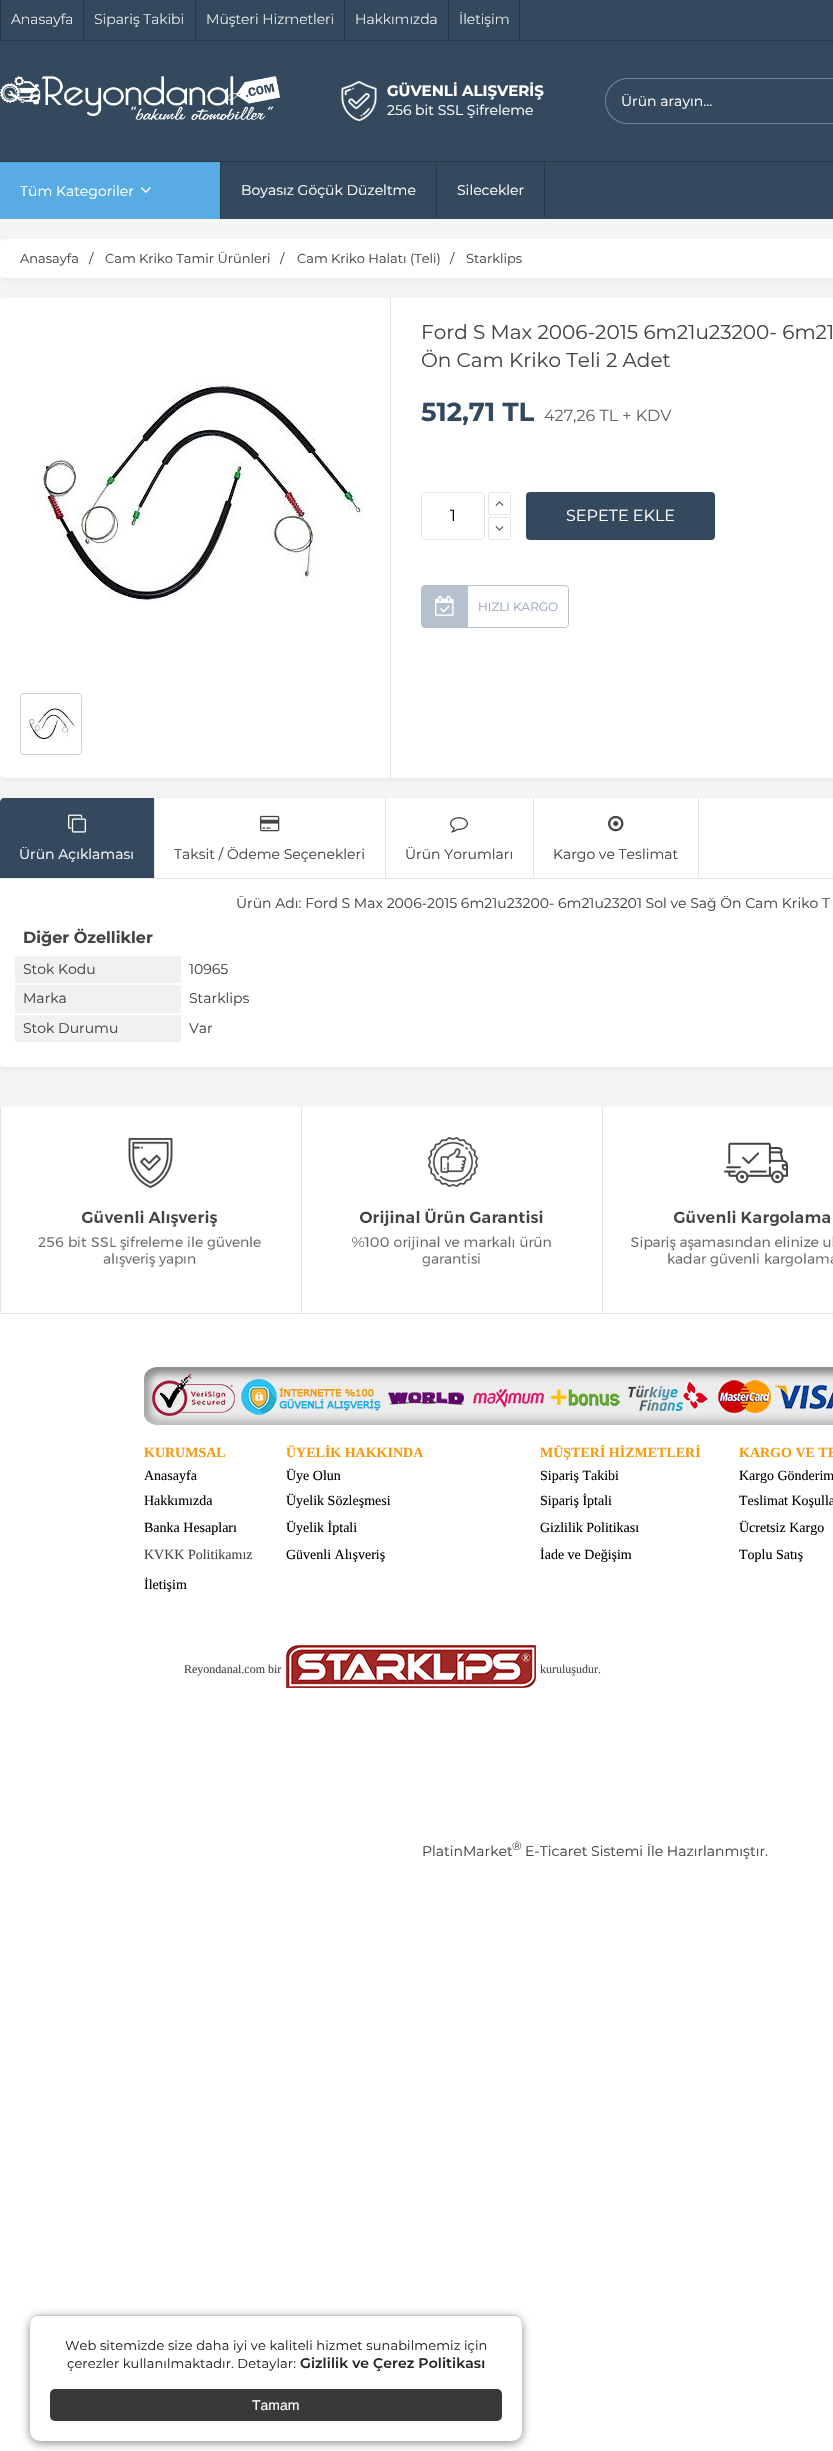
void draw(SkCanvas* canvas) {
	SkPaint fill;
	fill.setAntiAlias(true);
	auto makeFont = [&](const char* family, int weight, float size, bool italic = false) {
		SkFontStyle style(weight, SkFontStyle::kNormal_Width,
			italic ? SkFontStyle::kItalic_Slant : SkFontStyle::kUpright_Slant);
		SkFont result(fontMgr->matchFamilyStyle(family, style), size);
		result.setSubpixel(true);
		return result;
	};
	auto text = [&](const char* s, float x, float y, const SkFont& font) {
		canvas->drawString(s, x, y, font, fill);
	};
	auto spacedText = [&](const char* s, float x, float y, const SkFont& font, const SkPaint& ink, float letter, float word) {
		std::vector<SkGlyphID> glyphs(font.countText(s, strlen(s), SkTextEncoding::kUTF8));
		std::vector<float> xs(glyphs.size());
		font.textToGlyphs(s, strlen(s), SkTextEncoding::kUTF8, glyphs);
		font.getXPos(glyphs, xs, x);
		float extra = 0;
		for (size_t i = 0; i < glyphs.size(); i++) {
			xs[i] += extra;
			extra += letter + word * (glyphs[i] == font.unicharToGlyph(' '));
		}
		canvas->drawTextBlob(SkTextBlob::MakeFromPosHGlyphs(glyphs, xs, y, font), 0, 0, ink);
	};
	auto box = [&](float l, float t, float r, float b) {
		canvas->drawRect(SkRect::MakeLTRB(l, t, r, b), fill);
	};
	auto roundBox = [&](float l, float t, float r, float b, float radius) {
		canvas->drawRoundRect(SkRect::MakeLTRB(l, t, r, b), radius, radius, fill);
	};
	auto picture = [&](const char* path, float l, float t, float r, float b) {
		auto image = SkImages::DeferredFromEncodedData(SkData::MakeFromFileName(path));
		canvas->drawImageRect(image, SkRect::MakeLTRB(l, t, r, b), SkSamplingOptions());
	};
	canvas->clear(0xFFFFFFFF);
	fill.setColor(0xFFF5F5F5);
	box(0, 219, 833, 1107);
	fill.setColor(0xFF34495E);
	box(0, 0, 833, 219);
	fill.setColor(0xFF283A4C);
	box(0, 40, 833, 41);
	box(0, 0, 1, 40);
	box(83, 0, 84, 40);
	box(195, 0, 196, 40);
	box(344, 0, 345, 40);
	box(519, 0, 520, 40);
	box(448, 0, 449, 40);
	picture("image0.png", 0, 76, 280, 120);
	picture("image1.png", 341, 81, 377, 121);
	fill.setColor(0xFF6885A2);
	canvas->drawPath(SkPathBuilder(SkPathFillType::kEvenOdd).moveTo(628, 78).lineTo(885, 78).lineTo(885, 124).lineTo(628, 124).cubicTo(615, 124, 605, 114, 605, 101).cubicTo(605, 88, 615, 78, 628, 78).close().moveTo(628, 79).lineTo(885, 79).lineTo(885, 123).lineTo(628, 123).cubicTo(616, 123, 606, 113, 606, 101).cubicTo(606, 89, 616, 79, 628, 79).close().detach(), fill);
	fill.setColor(0xFF283A4C);
	box(0, 161, 833, 162);
	box(220, 162, 221, 219);
	fill.setColor(0xFF59ABE3);
	box(0, 162, 220, 219);
	picture("image2.png", 140, 187, 151, 193);
	fill.setColor(0xFF283A4C);
	box(436, 162, 437, 218);
	box(544, 162, 545, 218);
	fill.setColor(0xFF888888);
	fill.setMaskFilter(SkMaskFilter::MakeBlur(kNormal_SkBlurStyle, 5));
	canvas->drawRoundRect(SkRect::MakeLTRB(30, 2317, 522, 2443), 10, 10, fill);
	fill.setMaskFilter(nullptr);
	fill.setColor(0xFFFFFFFF);
	roundBox(30, 2315, 522, 2441, 10);
	fill.setColor(0xFFCCCCCC);
	box(35, 2315, 517, 2316);
	fill.setColor(0xFF37393B);
	roundBox(50, 2389, 502, 2421, 5);
	fill.setColor(0x0D000000);
	fill.setMaskFilter(SkMaskFilter::MakeBlur(kNormal_SkBlurStyle, 2.5f));
	canvas->drawRoundRect(SkRect::MakeLTRB(0, 241, 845, 280), 4, 4, fill);
	fill.setMaskFilter(nullptr);
	fill.setColor(0xFFFFFFFF);
	roundBox(0, 239, 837, 278, 4);
	fill.setColor(0x0D000000);
	fill.setMaskFilter(SkMaskFilter::MakeBlur(kNormal_SkBlurStyle, 2.5f));
	canvas->drawRoundRect(SkRect::MakeLTRB(0, 300, 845, 780), 4, 4, fill);
	fill.setMaskFilter(nullptr);
	fill.setColor(0xFFFFFFFF);
	roundBox(0, 298, 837, 778, 4);
	fill.setColor(0xFFE5E5E5);
	box(390, 298, 391, 778);
	picture("image3.png", 36, 382, 364, 605);
	fill.setStyle(SkPaint::kStroke_Style);
	fill.setStrokeWidth(1);
	fill.setColor(0xFFD2D2D2);
	canvas->drawRoundRect(SkRect::MakeLTRB(20.5f, 693.5f, 81.5f, 754.5f), 3.5f, 3.5f, fill);
	picture("image4.png", 26, 707, 75, 739);
	fill.setColor(0xFFE5E5E5);
	canvas->drawRoundRect(SkRect::MakeLTRB(421.5f, 492.5f, 484.5f, 539.5f), 3.5f, 3.5f, fill);
	canvas->drawRoundRect(SkRect::MakeLTRB(488.5f, 492.5f, 510.5f, 514.5f), 1.5f, 1.5f, fill);
	picture("image5.png", 495, 501, 504, 506);
	canvas->drawRoundRect(SkRect::MakeLTRB(488.5f, 517.5f, 510.5f, 539.5f), 1.5f, 1.5f, fill);
	picture("image6.png", 495, 526, 504, 531);
	fill.setStyle(SkPaint::kFill_Style);
	fill.setColor(0xFF34495E);
	roundBox(526, 492, 715, 540, 4);
	fill.setStyle(SkPaint::kStroke_Style);
	fill.setColor(0xFFB7C1CE);
	canvas->drawRoundRect(SkRect::MakeLTRB(421.5f, 585.5f, 568.5f, 627.5f), 3.5f, 3.5f, fill);
	fill.setStyle(SkPaint::kFill_Style);
	box(422, 586, 468, 627);
	picture("image7.png", 435, 595, 454, 616);
	fill.setColor(0x0D000000);
	fill.setMaskFilter(SkMaskFilter::MakeBlur(kNormal_SkBlurStyle, 2.5f));
	canvas->drawRoundRect(SkRect::MakeLTRB(0, 800, 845, 1069), 4, 4, fill);
	fill.setMaskFilter(nullptr);
	fill.setColor(0xFFFFFFFF);
	canvas->drawPath(SkPathBuilder().moveTo(4, 798).lineTo(833, 798).cubicTo(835, 798, 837, 800, 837, 802).lineTo(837, 879).lineTo(0, 879).lineTo(0, 802).cubicTo(0, 800, 2, 798, 4, 798).close().detach(), fill);
	fill.setColor(0xFFE5E5E5);
	box(0, 878, 833, 879);
	fill.setColor(0xFF34495E);
	canvas->drawPath(SkPathBuilder().moveTo(4, 798).lineTo(154, 798).lineTo(154, 878).lineTo(0, 878).lineTo(0, 802).cubicTo(0, 800, 2, 798, 4, 798).close().detach(), fill);
	fill.setColor(0xFFE5E5E5);
	box(154, 798, 155, 878);
	picture("image8.png", 68, 814, 86, 833);
	box(385, 798, 386, 878);
	picture("image9.png", 260, 815, 280, 832);
	box(533, 798, 534, 878);
	picture("image10.png", 450, 817, 468, 833);
	box(698, 798, 699, 878);
	picture("image11.png", 608, 815, 624, 832);
	fill.setColor(0xFFFFFFFF);
	canvas->drawPath(SkPathBuilder().moveTo(0, 879).lineTo(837, 879).lineTo(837, 1063).cubicTo(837, 1065, 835, 1067, 833, 1067).lineTo(4, 1067).cubicTo(2, 1067, 0, 1065, 0, 1063).close().detach(), fill);
	fill.setColor(0xFFF1F1F1);
	box(15, 956, 181, 983);
	box(15, 985, 181, 1013);
	box(15, 1015, 181, 1042);
	fill.setColor(0xFFE5E5E5);
	box(0, 1313, 833, 1314);
	box(301, 1107, 302, 1313);
	box(0, 1107, 1, 1313);
	picture("image12.png", 38, 1138, 261, 1267);
	box(602, 1107, 603, 1313);
	picture("image13.png", 352, 1137, 551, 1267);
	picture("image14.png", 631, 1142, 833, 1267);
	picture("image15.png", 144, 1367, 833, 1425);
	picture("image16.png", 286, 1645, 536, 1688);
	auto font1 = makeFont("Montserrat", 300, 14);
	fill.setColor(0xFFFFFFFF);
	text("Anasayfa", 11, 24, font1);
	text("Sipariş Takibi", 94, 24, font1);
	text("Müşteri Hizmetleri", 206, 24, font1);
	text("Hakkımızda", 355, 24, font1);
	text("İletişim", 459, 24, font1);
	auto font2 = makeFont("Montserrat", 700, 15);
	text("GÜVENLİ ALIŞVERİŞ", 387, 96, font2);
	auto font3 = makeFont("Montserrat", 400, 14);
	text("256 bit SSL Şifreleme", 387, 115, font3);
	text("Ürün arayın...", 621, 106, font3);
	text("Tüm Kategoriler", 20, 196, font3);
	text("Boyasız Göçük Düzeltme", 241, 195, font3);
	text("Silecekler", 457, 195, font3);
	auto font4 = makeFont("Montserrat", 400, 13);
	fill.setColor(0xFF262626);
	spacedText("Web sitemizde size daha iyi ve kaliteli hizmet sunabilmemiz için", 65, 2350, font4, fill, 0.1f, 0);
	spacedText("çerezler kullanılmaktadır. Detaylar:", 67, 2368, font4, fill, 0.1f, 0);
	auto font5 = makeFont("Montserrat", 600, 14);
	spacedText("Gizlilik ve Çerez Politikası", 300, 2368, font5, fill, 0.1f, 0);
	auto font6 = makeFont("Liberation Sans", 400, 14);
	fill.setColor(0xFFFFFFFF);
	text("Tamam", 252, 2410, font6);
	fill.setColor(0xFF444444);
	text("Anasayfa", 20, 263, font4);
	text("/", 89, 263, font4);
	text("Cam Kriko Tamir Ürünleri", 105, 263, font4);
	text("/", 280, 263, font4);
	text("Cam Kriko Halatı (Teli)", 297, 263, font4);
	text("/", 450, 263, font4);
	text("Starklips", 466, 263, font4);
	auto font7 = makeFont("Montserrat", 400, 20);
	text("Ford S Max 2006-2015 6m21u23200- 6m21", 421, 339, font7);
	text("Ön Cam Kriko Teli 2 Adet", 421, 367, font7);
	auto font8 = makeFont("Montserrat", 700, 26);
	fill.setColor(0xFF34495E);
	text("512,71 TL", 421, 421, font8);
	auto font9 = makeFont("Montserrat", 400, 16);
	fill.setColor(0xFF666666);
	text("427,26 TL + KDV", 544, 421, font9);
	fill.setColor(0xFF000000);
	text("1", 450, 521, font9);
	fill.setColor(0xFFFFFFFF);
	text("SEPETE EKLE", 566, 521, font9);
	auto font10 = makeFont("Montserrat", 400, 12);
	fill.setColor(0xFF98A6B7);
	text("HIZLI KARGO", 478, 611, font10);
	fill.setColor(0xFFFFFFFF);
	text("Ürün Açıklaması", 19, 859, font3);
	fill.setColor(0xFF444444);
	text("Taksit / Ödeme Seçenekleri", 174, 859, font3);
	text("Ürün Yorumları", 405, 859, font3);
	text("Kargo ve Teslimat", 553, 859, font3);
	text("Ürün Adı: Ford S Max 2006-2015 6m21u23200- 6m21u23201 Sol ve Sağ Ön Cam Kriko T", 236, 908, font3);
	auto font11 = makeFont("Montserrat", 700, 16);
	text("Diğer Özellikler", 23, 943, font11);
	text("Stok Kodu", 23, 974, font3);
	text("10965", 189, 974, font3);
	text("Marka", 23, 1003, font3);
	text("Starklips", 189, 1003, font3);
	text("Stok Durumu", 23, 1033, font3);
	text("Var", 189, 1033, font3);
	auto font12 = makeFont("Liberation Serif", 700, 14);
	fill.setColor(0xFFF39C12);
	text("KURUMSAL", 144, 1457, font12);
	text("ÜYELİK HAKKINDA", 286, 1457, font12);
	text("MÜŞTERİ HİZMETLERİ", 540, 1457, font12);
	text("KARGO VE TE", 739, 1457, font12);
	auto font13 = makeFont("Liberation Serif", 400, 14);
	fill.setColor(0xFF000000);
	text("Anasayfa", 144, 1480, font13);
	text("Üye Olun", 286, 1480, font13);
	text("Sipariş Takibi", 540, 1480, font13);
	text("Kargo Gönderim", 739, 1480, font13);
	text("Hakkımızda", 144, 1505, font13);
	text("Üyelik Sözleşmesi", 286, 1505, font13);
	text("Sipariş İptali", 540, 1505, font13);
	text("Teslimat Koşulla", 739, 1505, font13);
	text("Banka Hesapları", 144, 1532, font13);
	text("Üyelik İptali", 286, 1532, font13);
	text("Gizlilik Politikası", 540, 1532, font13);
	text("Ücretsiz Kargo", 739, 1532, font13);
	fill.setColor(0xFF444444);
	text("KVKK Politikamız", 144, 1559, font13);
	fill.setColor(0xFF000000);
	text("Güvenli Alışveriş", 286, 1559, font13);
	text("İade ve Değişim", 540, 1559, font13);
	text("Toplu Satış", 739, 1559, font13);
	text("İletişim", 144, 1589, font13);
	auto font14 = makeFont("Liberation Serif", 400, 12);
	fill.setColor(0xFF444444);
	text("Reyondanal.com bir", 184, 1673, font14);
	text("kuruluşudur.", 540, 1673, font14);
	text("PlatinMarket", 422, 1856, font3);
	text("®", 512, 1850, font10);
	text("E-Ticaret Sistemi İle Hazırlanmıştır.", 525, 1856, font3);
}
